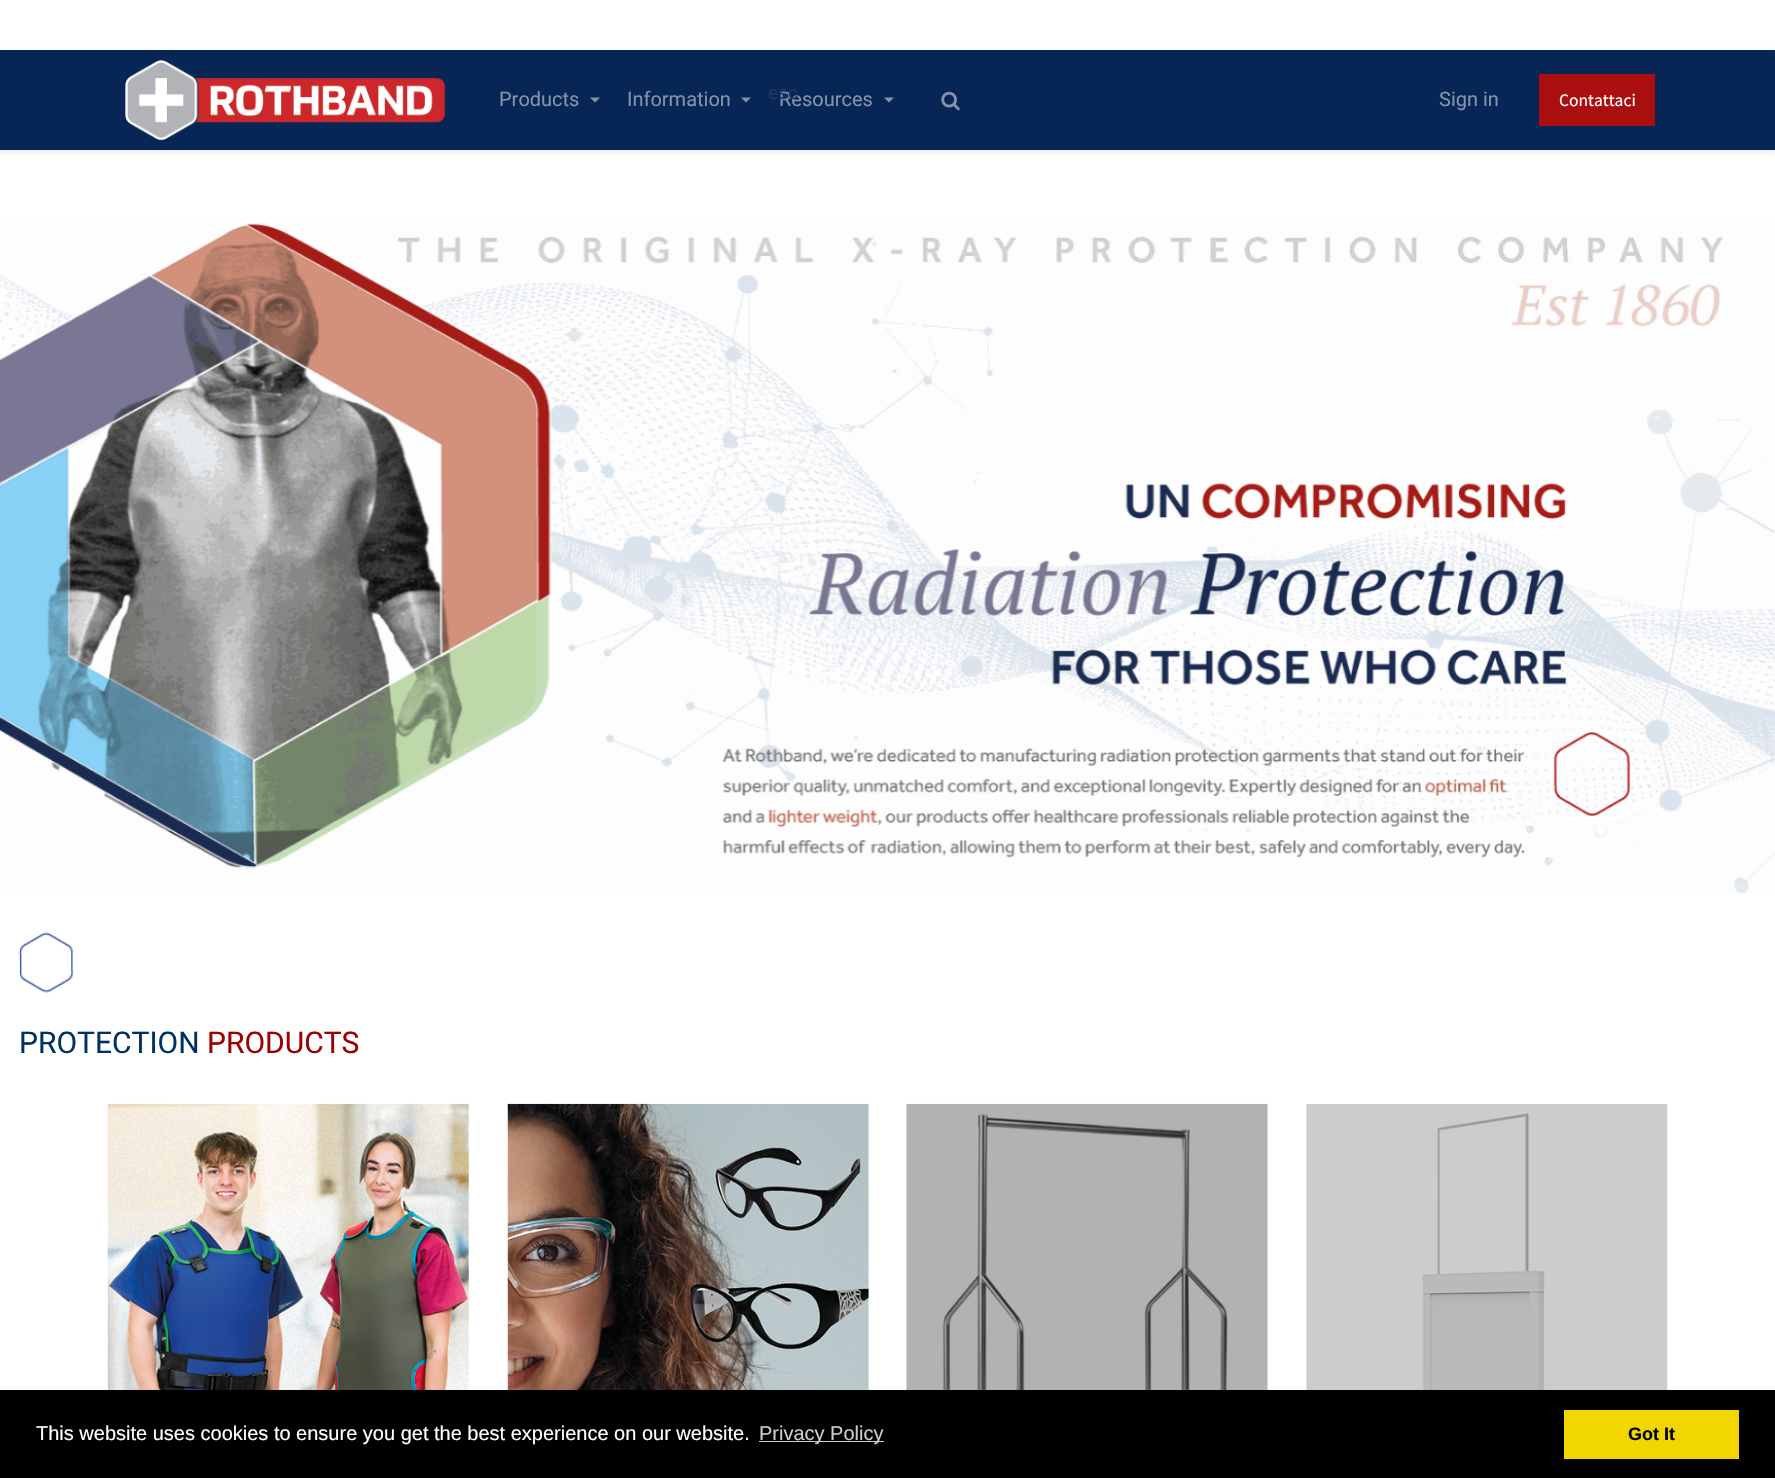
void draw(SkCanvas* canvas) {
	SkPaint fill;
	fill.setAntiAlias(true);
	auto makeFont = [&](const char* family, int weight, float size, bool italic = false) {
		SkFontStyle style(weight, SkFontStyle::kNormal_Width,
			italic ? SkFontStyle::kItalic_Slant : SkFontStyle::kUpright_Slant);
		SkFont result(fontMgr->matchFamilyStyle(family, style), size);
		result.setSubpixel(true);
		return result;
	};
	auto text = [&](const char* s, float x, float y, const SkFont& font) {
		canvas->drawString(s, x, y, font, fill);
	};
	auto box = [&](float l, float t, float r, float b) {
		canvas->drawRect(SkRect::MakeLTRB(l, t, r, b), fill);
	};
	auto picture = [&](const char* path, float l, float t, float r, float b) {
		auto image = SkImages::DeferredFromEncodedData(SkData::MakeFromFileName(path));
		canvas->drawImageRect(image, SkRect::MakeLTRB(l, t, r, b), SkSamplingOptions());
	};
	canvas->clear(0xFFFFFFFF);
	fill.setColor(0x12000000);
	fill.setMaskFilter(SkMaskFilter::MakeBlur(kNormal_SkBlurStyle, 2.5f));
	canvas->drawRect(SkRect::MakeLTRB(0, 53, 1775, 153), fill);
	fill.setMaskFilter(nullptr);
	fill.setColor(0xFF072655);
	box(0, 50, 1775, 150);
	picture("image0.png", 125, 60, 445, 140);
	fill.setColor(0xFF8393AA);
	canvas->drawPath(SkPathBuilder().moveTo(590, 97.5f).lineTo(600, 97.5f).lineTo(595, 102.5f).close().detach(), fill);
	canvas->drawPath(SkPathBuilder().moveTo(741, 97.5f).lineTo(751, 97.5f).lineTo(746, 102.5f).close().detach(), fill);
	canvas->drawPath(SkPathBuilder().moveTo(884, 97.5f).lineTo(894, 97.5f).lineTo(889, 102.5f).close().detach(), fill);
	picture("image1.png", 941, 91, 960, 111);
	fill.setColor(0xFFAA0E0E);
	box(1539, 74, 1655, 126);
	picture("image2.png", 0, 223, 1775, 894);
	picture("image3.png", 18, 932, 74, 993);
	picture("image4.png", 107, 1103, 469, 1390);
	picture("image5.png", 507, 1103, 869, 1390);
	picture("image6.png", 906, 1103, 1268, 1390);
	picture("image7.png", 1306, 1104, 1668, 1390);
	fill.setColor(0xFF000000);
	box(0, 1390, 1775, 1478);
	fill.setColor(0xFFCCCCCC);
	box(759, 1441, 884, 1442);
	fill.setColor(0xFFF1D600);
	box(1564, 1410, 1739, 1459);
	auto font1 = makeFont("Roboto", 400, 20);
	fill.setColor(0xFF8393AA);
	text("Products", 499, 106, font1);
	text("Information", 627, 106, font1);
	text("Resources", 779, 106, font1);
	auto font2 = makeFont("Roboto", 400, 19);
	fill.setColor(0xFF1B3863);
	text("esc", 768, 99, font2);
	fill.setColor(0xFF8393AA);
	text("Sign in", 1439, 106, font1);
	auto font3 = makeFont("Source Sans Pro", 400, 17.5f);
	fill.setColor(0xFFFFFFFF);
	text("Contattaci", 1559, 106, font3);
	auto font4 = makeFont("Roboto", 400, 30);
	fill.setColor(0xFF003163);
	text("PROTECTION", 19, 1053, font4);
	fill.setColor(0xFF9C0000);
	text("PRODUCTS", 207, 1053, font4);
	auto font5 = makeFont("Liberation Sans", 400, 20);
	fill.setColor(0xFFFFFFFF);
	text("This website uses cookies to ensure you get the best experience on our website.", 36, 1440, font5);
	fill.setColor(0xFFCCCCCC);
	text("Privacy Policy", 759, 1440, font5);
	auto font6 = makeFont("Liberation Sans", 700, 18);
	fill.setColor(0xFF000000);
	text("Got It", 1628, 1440, font6);
}
